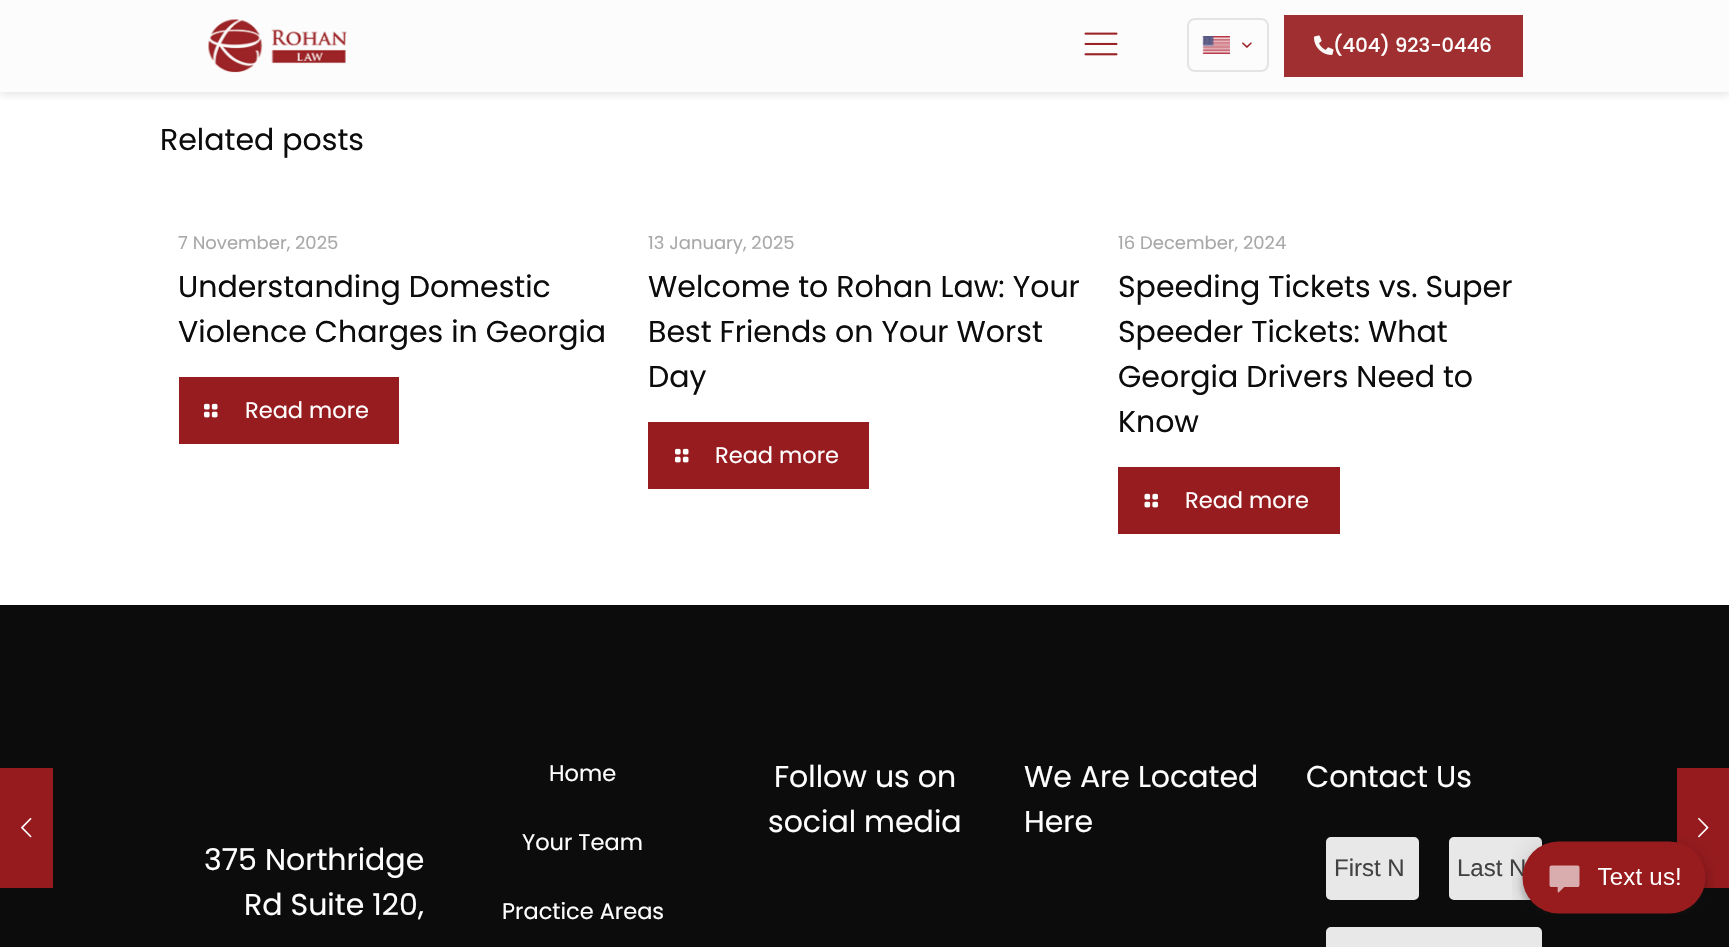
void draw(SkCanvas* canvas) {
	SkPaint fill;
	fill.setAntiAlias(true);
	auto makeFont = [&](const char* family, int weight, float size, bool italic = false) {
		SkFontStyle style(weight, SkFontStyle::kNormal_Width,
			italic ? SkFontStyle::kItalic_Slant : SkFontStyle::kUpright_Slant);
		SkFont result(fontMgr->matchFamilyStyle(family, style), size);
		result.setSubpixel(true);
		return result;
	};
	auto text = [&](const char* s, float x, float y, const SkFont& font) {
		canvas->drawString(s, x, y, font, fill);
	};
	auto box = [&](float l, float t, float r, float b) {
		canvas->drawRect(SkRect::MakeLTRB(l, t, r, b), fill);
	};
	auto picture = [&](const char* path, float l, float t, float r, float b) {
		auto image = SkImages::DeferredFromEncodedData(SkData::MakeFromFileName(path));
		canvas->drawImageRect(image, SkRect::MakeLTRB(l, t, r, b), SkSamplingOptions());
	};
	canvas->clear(0xFFFFFFFF);
	fill.setColor(0xFF0C0C0C);
	box(0, 605, 1729, 947);
	fill.setColor(0xFF961B1E);
	box(0, 768, 53, 888);
	picture("image0.png", 21, 817, 32, 838);
	fill.setColor(0xFFEBEBEB);
	box(161, 86, 1571, 88);
	canvas->save();
	canvas->clipPath(SkPathBuilder(SkPathFillType::kEvenOdd).moveTo(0, 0).lineTo(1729, 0).lineTo(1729, 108).lineTo(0, 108).close().moveTo(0, 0).lineTo(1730, 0).lineTo(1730, 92).lineTo(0, 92).close().detach(), true);
	fill.setColor(0x1A080808);
	fill.setMaskFilter(SkMaskFilter::MakeBlur(kNormal_SkBlurStyle, 4));
	canvas->drawRect(SkRect::MakeLTRB(0, 3, 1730, 95), fill);
	fill.setMaskFilter(nullptr);
	canvas->restore();
	fill.setColor(0xF7FCFCFC);
	box(0, 0, 1729, 92);
	picture("image1.png", 208, 19, 347, 73);
	picture("image2.png", 1084, 32, 1118, 56);
	fill.setStyle(SkPaint::kStroke_Style);
	fill.setStrokeWidth(2);
	fill.setColor(0xFFE4E4E4);
	canvas->drawRoundRect(SkRect::MakeLTRB(1188, 19, 1268, 71), 7, 7, fill);
	picture("image3.png", 1202, 36, 1230, 54);
	picture("image4.png", 1242, 42, 1252, 48);
	fill.setStyle(SkPaint::kFill_Style);
	fill.setColor(0xFF9A2326);
	box(1284, 15, 1523, 77);
	picture("image5.png", 1314, 35, 1334, 55);
	fill.setColor(0x0DFFFFFF);
	box(1284, 15, 1523, 77);
	fill.setColor(0xFF971C1F);
	box(179, 377, 399, 444);
	picture("image6.png", 204, 403, 218, 418);
	box(648, 422, 869, 489);
	picture("image6.png", 675, 448, 689, 463);
	box(1118, 467, 1340, 534);
	picture("image7.png", 1144, 493, 1158, 508);
	fill.setColor(0xFFE8E8E8);
	canvas->drawRoundRect(SkRect::MakeLTRB(1327, 838, 1418, 899), 4, 4, fill);
	fill.setStyle(SkPaint::kStroke_Style);
	canvas->drawRoundRect(SkRect::MakeLTRB(1327, 838, 1418, 899), 4, 4, fill);
	fill.setStyle(SkPaint::kFill_Style);
	canvas->drawRoundRect(SkRect::MakeLTRB(1450, 838, 1541, 899), 4, 4, fill);
	fill.setStyle(SkPaint::kStroke_Style);
	canvas->drawRoundRect(SkRect::MakeLTRB(1450, 838, 1541, 899), 4, 4, fill);
	fill.setStyle(SkPaint::kFill_Style);
	canvas->drawRoundRect(SkRect::MakeLTRB(1327, 928, 1541, 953), 4, 4, fill);
	fill.setStyle(SkPaint::kStroke_Style);
	canvas->drawRoundRect(SkRect::MakeLTRB(1327, 928, 1541, 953), 4, 4, fill);
	fill.setStyle(SkPaint::kFill_Style);
	fill.setColor(0xFF961B1E);
	box(1677, 768, 1729, 888);
	picture("image8.png", 1698, 817, 1709, 838);
	auto font1 = makeFont("Poppins", 500, 19.5f);
	fill.setColor(0xFFFFFFFF);
	text("(404) 923-0446", 1333, 52, font1);
	auto font2 = makeFont("Poppins", 400, 30);
	fill.setColor(0xFF0C0C0C);
	text("Related posts", 160, 150, font2);
	auto font3 = makeFont("Poppins", 400, 18);
	fill.setColor(0xFFA8A8A8);
	text("7 November, 2025", 178, 249, font3);
	fill.setColor(0xFF0C0C0C);
	text("Understanding Domestic", 178, 297, font2);
	text("Violence Charges in Georgia", 178, 342, font2);
	auto font4 = makeFont("Poppins", 400, 22.5f);
	fill.setColor(0xFFFFFFFF);
	text("Read more", 245, 418, font4);
	fill.setColor(0xFFA8A8A8);
	text("13 January, 2025", 648, 249, font3);
	fill.setColor(0xFF0C0C0C);
	text("Welcome to Rohan Law: Your", 648, 297, font2);
	text("Best Friends on Your Worst", 648, 342, font2);
	text("Day", 648, 387, font2);
	fill.setColor(0xFFFFFFFF);
	text("Read more", 715, 463, font4);
	fill.setColor(0xFFA8A8A8);
	text("16 December, 2024", 1118, 249, font3);
	fill.setColor(0xFF0C0C0C);
	text("Speeding Tickets vs. Super", 1118, 297, font2);
	text("Speeder Tickets: What", 1118, 342, font2);
	text("Georgia Drivers Need to", 1118, 387, font2);
	text("Know", 1118, 432, font2);
	fill.setColor(0xFFFFFFFF);
	text("Read more", 1185, 508, font4);
	text("375 Northridge", 204, 870, font2);
	text("Rd Suite 120,", 244, 915, font2);
	text("Home", 549, 781, font4);
	text("Your Team", 522, 850, font4);
	text("Practice Areas", 502, 919, font4);
	text("Follow us on", 774, 787, font2);
	text("social media", 768, 832, font2);
	text("We Are Located", 1024, 787, font2);
	text("Here", 1024, 832, font2);
	text("Contact Us", 1306, 787, font2);
	auto font5 = makeFont("Liberation Sans", 400, 24);
	fill.setColor(0xFF424242);
	text("First N", 1334, 876, font5);
	text("Last N", 1457, 876, font5);
	picture("image9.png", 1512, 836, 1715, 914);
}
